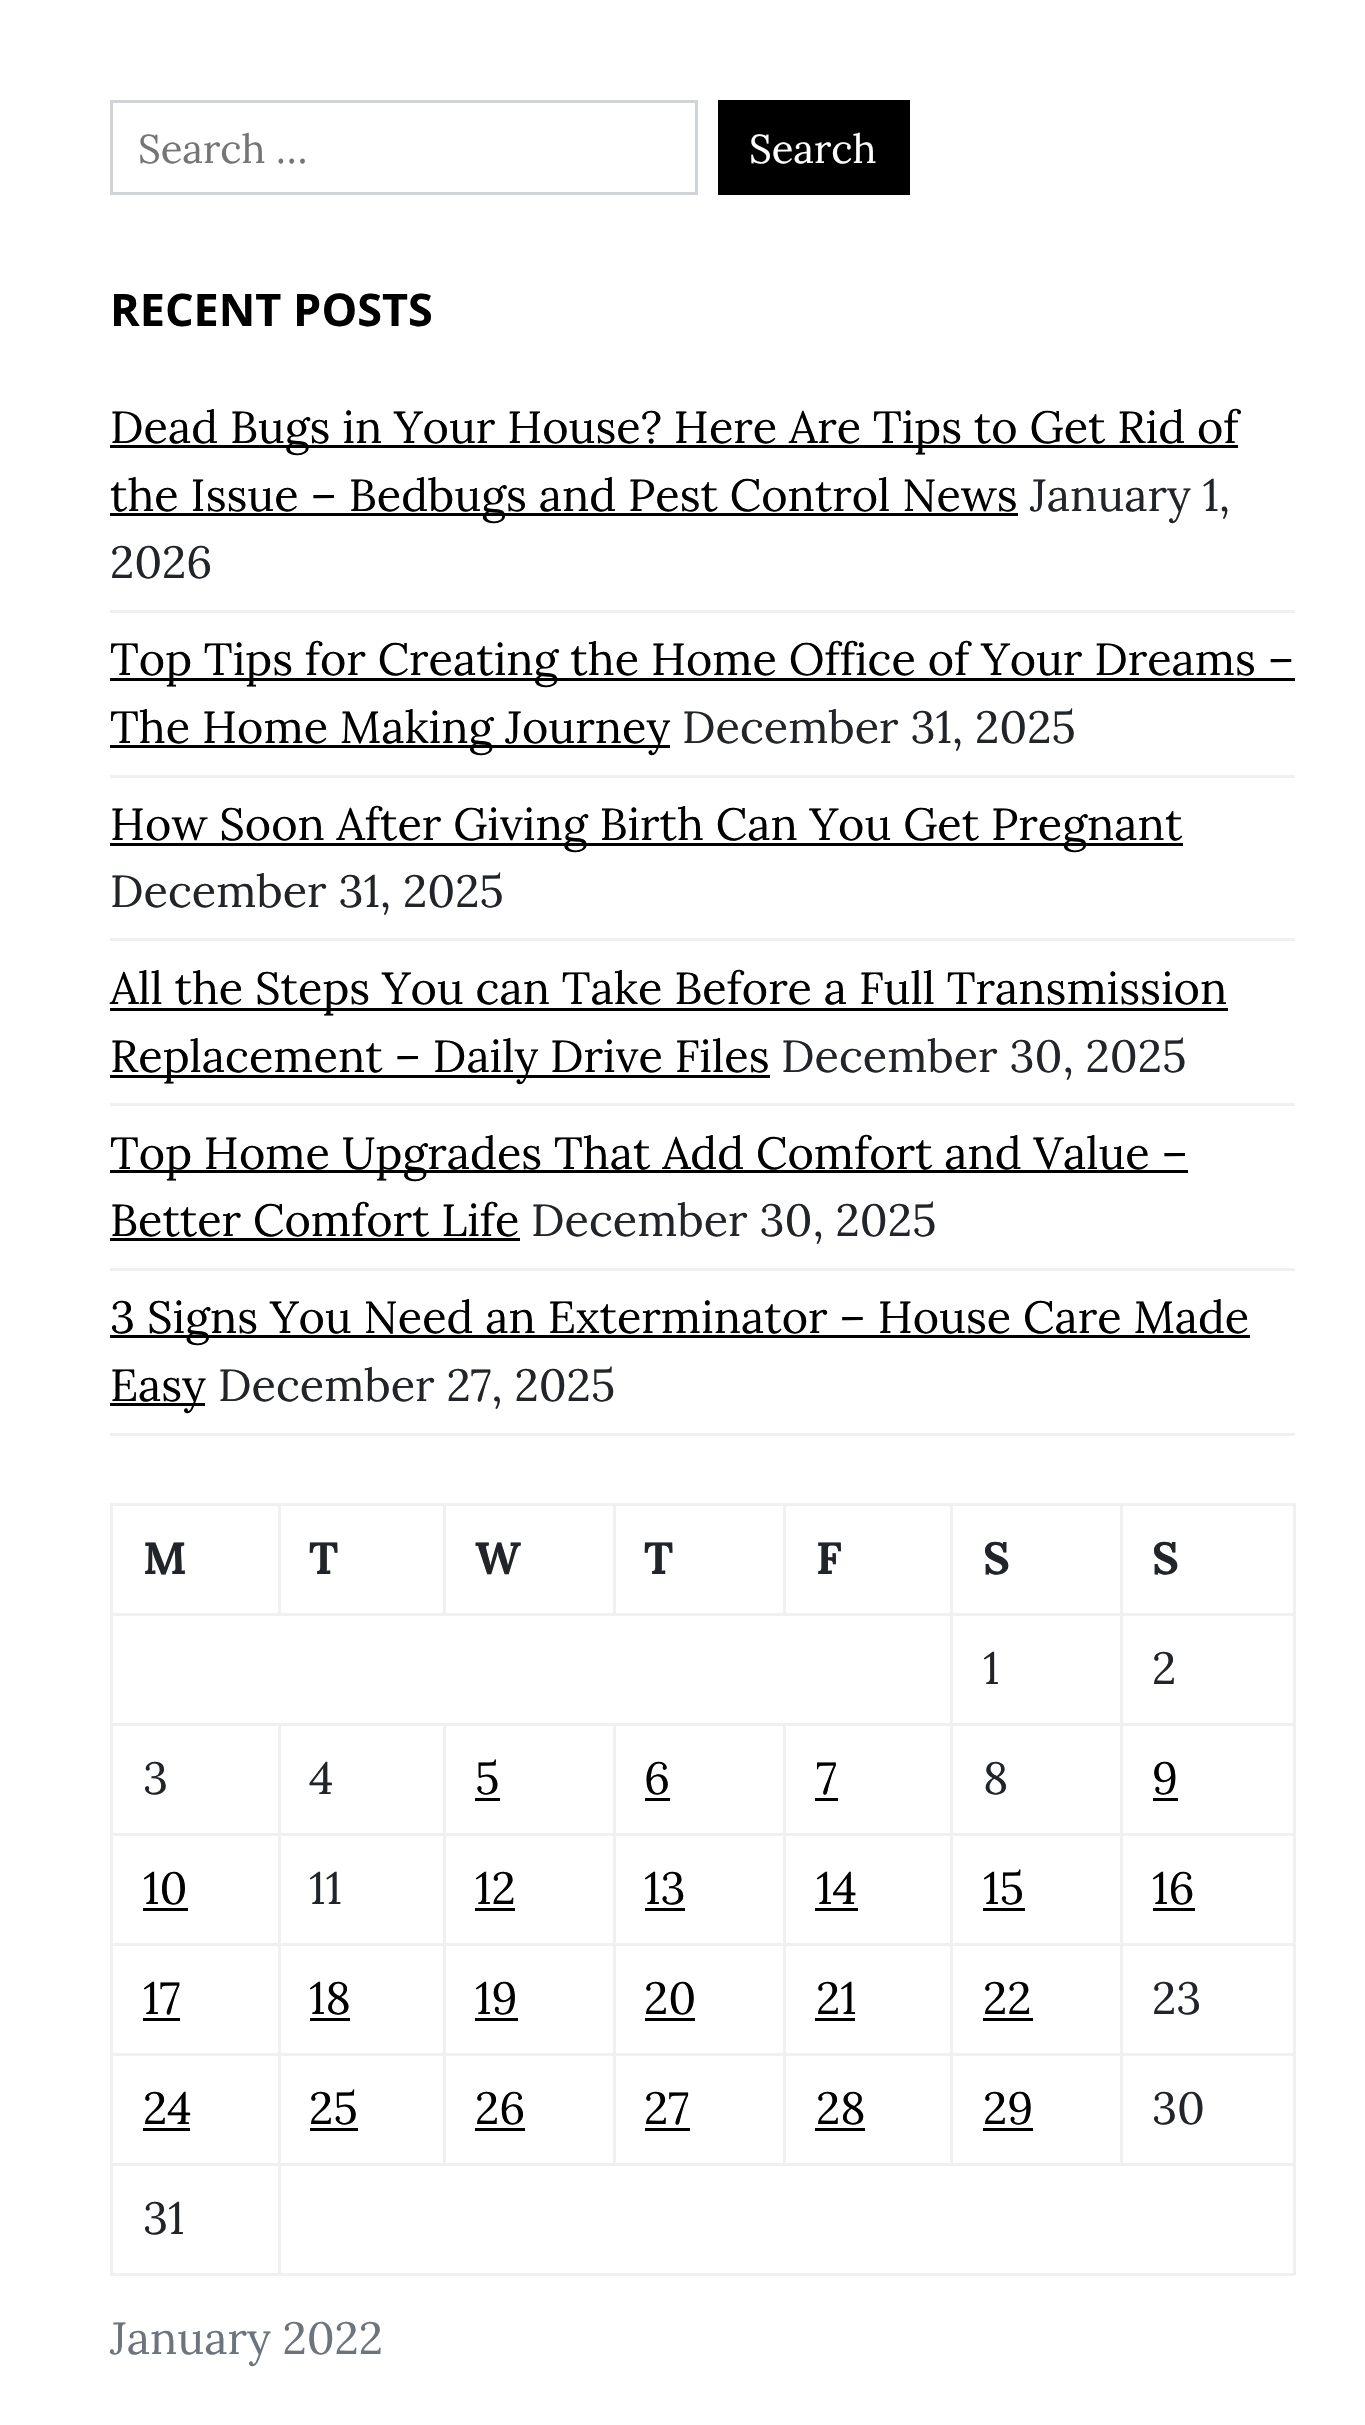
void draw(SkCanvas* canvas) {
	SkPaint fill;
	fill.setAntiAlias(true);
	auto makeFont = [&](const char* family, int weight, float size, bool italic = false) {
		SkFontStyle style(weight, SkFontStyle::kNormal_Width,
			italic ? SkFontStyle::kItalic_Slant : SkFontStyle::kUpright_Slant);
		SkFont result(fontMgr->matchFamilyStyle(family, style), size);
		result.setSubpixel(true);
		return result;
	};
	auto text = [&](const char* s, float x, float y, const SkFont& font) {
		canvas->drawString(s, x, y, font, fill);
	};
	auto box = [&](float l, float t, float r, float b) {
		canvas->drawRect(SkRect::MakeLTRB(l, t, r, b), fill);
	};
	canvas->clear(0xFFFFFFFF);
	fill.setStyle(SkPaint::kStroke_Style);
	fill.setStrokeWidth(3);
	fill.setColor(0xFFCED4DA);
	canvas->drawRect(SkRect::MakeLTRB(111.5f, 101.5f, 696.5f, 193.5f), fill);
	fill.setStyle(SkPaint::kFill_Style);
	fill.setColor(0xFF000000);
	box(718, 100, 910, 195);
	fill.setColor(0xFFF0F0F0);
	box(110, 610, 1295, 613);
	fill.setColor(0xFF000000);
	box(110, 445, 1238, 448);
	box(110, 513, 1018, 516);
	fill.setColor(0xFFF0F0F0);
	box(110, 775, 1295, 778);
	fill.setColor(0xFF000000);
	box(110, 678, 1295, 681);
	box(110, 745, 670, 748);
	fill.setColor(0xFFF0F0F0);
	box(110, 938, 1295, 941);
	fill.setColor(0xFF000000);
	box(110, 843, 1183, 846);
	fill.setColor(0xFFF0F0F0);
	box(110, 1103, 1295, 1106);
	fill.setColor(0xFF000000);
	box(110, 1008, 1228, 1011);
	box(110, 1075, 770, 1078);
	fill.setColor(0xFFF0F0F0);
	box(110, 1268, 1295, 1271);
	fill.setColor(0xFF000000);
	box(110, 1170, 1188, 1173);
	box(110, 1238, 520, 1241);
	fill.setColor(0xFFF0F0F0);
	box(110, 1433, 1295, 1436);
	fill.setColor(0xFF000000);
	box(110, 1335, 1250, 1338);
	box(110, 1403, 205, 1406);
	fill.setColor(0xFFF0F0F0);
	box(1120, 1503, 1295, 1506);
	box(1120, 1613, 1295, 1616);
	box(1120, 1723, 1295, 1726);
	box(1120, 1833, 1295, 1836);
	box(1120, 1943, 1295, 1946);
	box(1120, 2053, 1295, 2056);
	box(278, 2163, 1295, 2166);
	box(1120, 2053, 1123, 2165);
	box(950, 2053, 1123, 2056);
	box(1120, 1943, 1123, 2055);
	box(950, 1943, 1123, 1946);
	box(1120, 1833, 1123, 1945);
	box(950, 1833, 1123, 1836);
	box(1120, 1723, 1123, 1835);
	box(950, 1723, 1123, 1726);
	box(1120, 1613, 1123, 1725);
	box(950, 1613, 1123, 1616);
	box(1120, 1503, 1123, 1615);
	box(950, 1503, 1123, 1506);
	box(950, 2053, 953, 2165);
	box(783, 2053, 953, 2056);
	box(950, 1943, 953, 2055);
	box(783, 1943, 953, 1946);
	box(950, 1833, 953, 1945);
	box(783, 1833, 953, 1836);
	box(950, 1723, 953, 1835);
	box(783, 1723, 953, 1726);
	box(950, 1613, 953, 1725);
	box(110, 1613, 953, 1616);
	box(950, 1503, 953, 1615);
	box(783, 1503, 953, 1506);
	box(783, 1503, 786, 1615);
	box(613, 1503, 785, 1506);
	box(613, 1503, 616, 1615);
	box(443, 1503, 615, 1506);
	box(443, 1503, 446, 1615);
	box(278, 1503, 445, 1506);
	box(278, 1503, 281, 1615);
	box(110, 1503, 280, 1506);
	box(783, 2053, 786, 2165);
	box(613, 2053, 785, 2056);
	box(783, 1943, 786, 2055);
	box(613, 1943, 785, 1946);
	box(783, 1833, 786, 1945);
	box(613, 1833, 785, 1836);
	box(783, 1723, 786, 1835);
	box(613, 1723, 785, 1726);
	box(613, 2053, 616, 2165);
	box(443, 2053, 615, 2056);
	box(613, 1943, 616, 2055);
	box(443, 1943, 615, 1946);
	box(613, 1833, 616, 1945);
	box(443, 1833, 615, 1836);
	box(613, 1723, 616, 1835);
	box(443, 1723, 615, 1726);
	box(443, 2053, 446, 2165);
	box(278, 2053, 445, 2056);
	box(443, 1943, 446, 2055);
	box(278, 1943, 445, 1946);
	box(443, 1833, 446, 1945);
	box(278, 1833, 445, 1836);
	box(443, 1723, 446, 1835);
	box(278, 1723, 445, 1726);
	box(1293, 2163, 1296, 2275);
	box(278, 2273, 1295, 2276);
	box(278, 2163, 281, 2275);
	box(110, 2163, 280, 2166);
	box(278, 2053, 281, 2165);
	box(110, 2053, 280, 2056);
	box(278, 1943, 281, 2055);
	box(110, 1943, 280, 1946);
	box(278, 1833, 281, 1945);
	box(110, 1833, 280, 1836);
	box(278, 1723, 281, 1835);
	box(110, 1723, 280, 1726);
	box(110, 2273, 280, 2276);
	box(110, 2163, 113, 2275);
	box(110, 2053, 113, 2165);
	box(110, 1943, 113, 2055);
	box(110, 1833, 113, 1945);
	box(110, 1723, 113, 1835);
	box(110, 1613, 113, 1725);
	box(110, 1503, 113, 1615);
	box(1293, 2053, 1296, 2165);
	box(1293, 1943, 1296, 2055);
	box(1293, 1833, 1296, 1945);
	box(1293, 1723, 1296, 1835);
	box(1293, 1613, 1296, 1725);
	box(1293, 1503, 1296, 1615);
	fill.setColor(0xFF000000);
	box(475, 1798, 500, 1801);
	box(645, 1798, 670, 1801);
	box(815, 1798, 838, 1801);
	box(1153, 1798, 1178, 1801);
	box(143, 1908, 188, 1911);
	box(475, 1908, 515, 1911);
	box(645, 1908, 685, 1911);
	box(815, 1908, 858, 1911);
	box(983, 1908, 1025, 1911);
	box(1153, 1908, 1195, 1911);
	box(143, 2018, 180, 2021);
	box(310, 2018, 350, 2021);
	box(475, 2018, 518, 2021);
	box(645, 2018, 695, 2021);
	box(815, 2018, 855, 2021);
	box(983, 2018, 1033, 2021);
	box(143, 2128, 190, 2131);
	box(310, 2128, 358, 2131);
	box(475, 2128, 525, 2131);
	box(645, 2128, 690, 2131);
	box(815, 2128, 865, 2131);
	box(983, 2128, 1033, 2131);
	auto font1 = makeFont("Lora", 400, 40);
	fill.setColor(0xFF757575);
	text("Search …", 138, 163, font1);
	fill.setColor(0xFFFFFFFF);
	text("Search", 749, 163, font1);
	auto font2 = makeFont("Open Sans", 700, 45);
	fill.setColor(0xFF000000);
	text("RECENT POSTS", 110, 326, font2);
	auto font3 = makeFont("Lora", 400, 45);
	text("Dead Bugs in Your House? Here Are Tips to Get Rid of", 110, 443, font3);
	text("the Issue – Bedbugs and Pest Control News", 110, 511, font3);
	fill.setColor(0xFF212529);
	text("January 1,", 1030, 511, font3);
	text("2026", 110, 578, font3);
	fill.setColor(0xFF000000);
	text("Top Tips for Creating the Home Office of Your Dreams –", 110, 675, font3);
	text("The Home Making Journey", 110, 743, font3);
	fill.setColor(0xFF212529);
	text("December 31, 2025", 682, 743, font3);
	fill.setColor(0xFF000000);
	text("How Soon After Giving Birth Can You Get Pregnant", 110, 840, font3);
	fill.setColor(0xFF212529);
	text("December 31, 2025", 110, 907, font3);
	fill.setColor(0xFF000000);
	text("All the Steps You can Take Before a Full Transmission", 110, 1004, font3);
	text("Replacement – Daily Drive Files", 110, 1072, font3);
	fill.setColor(0xFF212529);
	text("December 30, 2025", 781, 1072, font3);
	fill.setColor(0xFF000000);
	text("Top Home Upgrades That Add Comfort and Value –", 110, 1169, font3);
	text("Better Comfort Life", 110, 1236, font3);
	fill.setColor(0xFF212529);
	text("December 30, 2025", 531, 1236, font3);
	fill.setColor(0xFF000000);
	text("3 Signs You Need an Exterminator – House Care Made", 110, 1333, font3);
	text("Easy", 110, 1401, font3);
	fill.setColor(0xFF212529);
	text("December 27, 2025", 218, 1401, font3);
	auto font4 = makeFont("Lora", 700, 45);
	text("M", 143, 1574, font4);
	text("T", 309, 1574, font4);
	text("W", 475, 1574, font4);
	text("T", 644, 1574, font4);
	text("F", 816, 1574, font4);
	text("S", 983, 1574, font4);
	text("S", 1152, 1574, font4);
	text("1", 983, 1684, font3);
	text("2", 1152, 1684, font3);
	text("3", 143, 1794, font3);
	text("4", 309, 1794, font3);
	fill.setColor(0xFF000000);
	text("5", 475, 1794, font3);
	text("6", 644, 1794, font3);
	text("7", 816, 1794, font3);
	fill.setColor(0xFF212529);
	text("8", 983, 1794, font3);
	fill.setColor(0xFF000000);
	text("9", 1152, 1794, font3);
	text("10", 143, 1904, font3);
	fill.setColor(0xFF212529);
	text("11", 309, 1904, font3);
	fill.setColor(0xFF000000);
	text("12", 475, 1904, font3);
	text("13", 644, 1904, font3);
	text("14", 816, 1904, font3);
	text("15", 983, 1904, font3);
	text("16", 1152, 1904, font3);
	text("17", 143, 2014, font3);
	text("18", 309, 2014, font3);
	text("19", 475, 2014, font3);
	text("20", 644, 2014, font3);
	text("21", 816, 2014, font3);
	text("22", 983, 2014, font3);
	fill.setColor(0xFF212529);
	text("23", 1152, 2014, font3);
	fill.setColor(0xFF000000);
	text("24", 143, 2124, font3);
	text("25", 309, 2124, font3);
	text("26", 475, 2124, font3);
	text("27", 644, 2124, font3);
	text("28", 816, 2124, font3);
	text("29", 983, 2124, font3);
	fill.setColor(0xFF212529);
	text("30", 1152, 2124, font3);
	text("31", 143, 2234, font3);
	fill.setColor(0xFF6C757D);
	text("January 2022", 110, 2354, font3);
}
